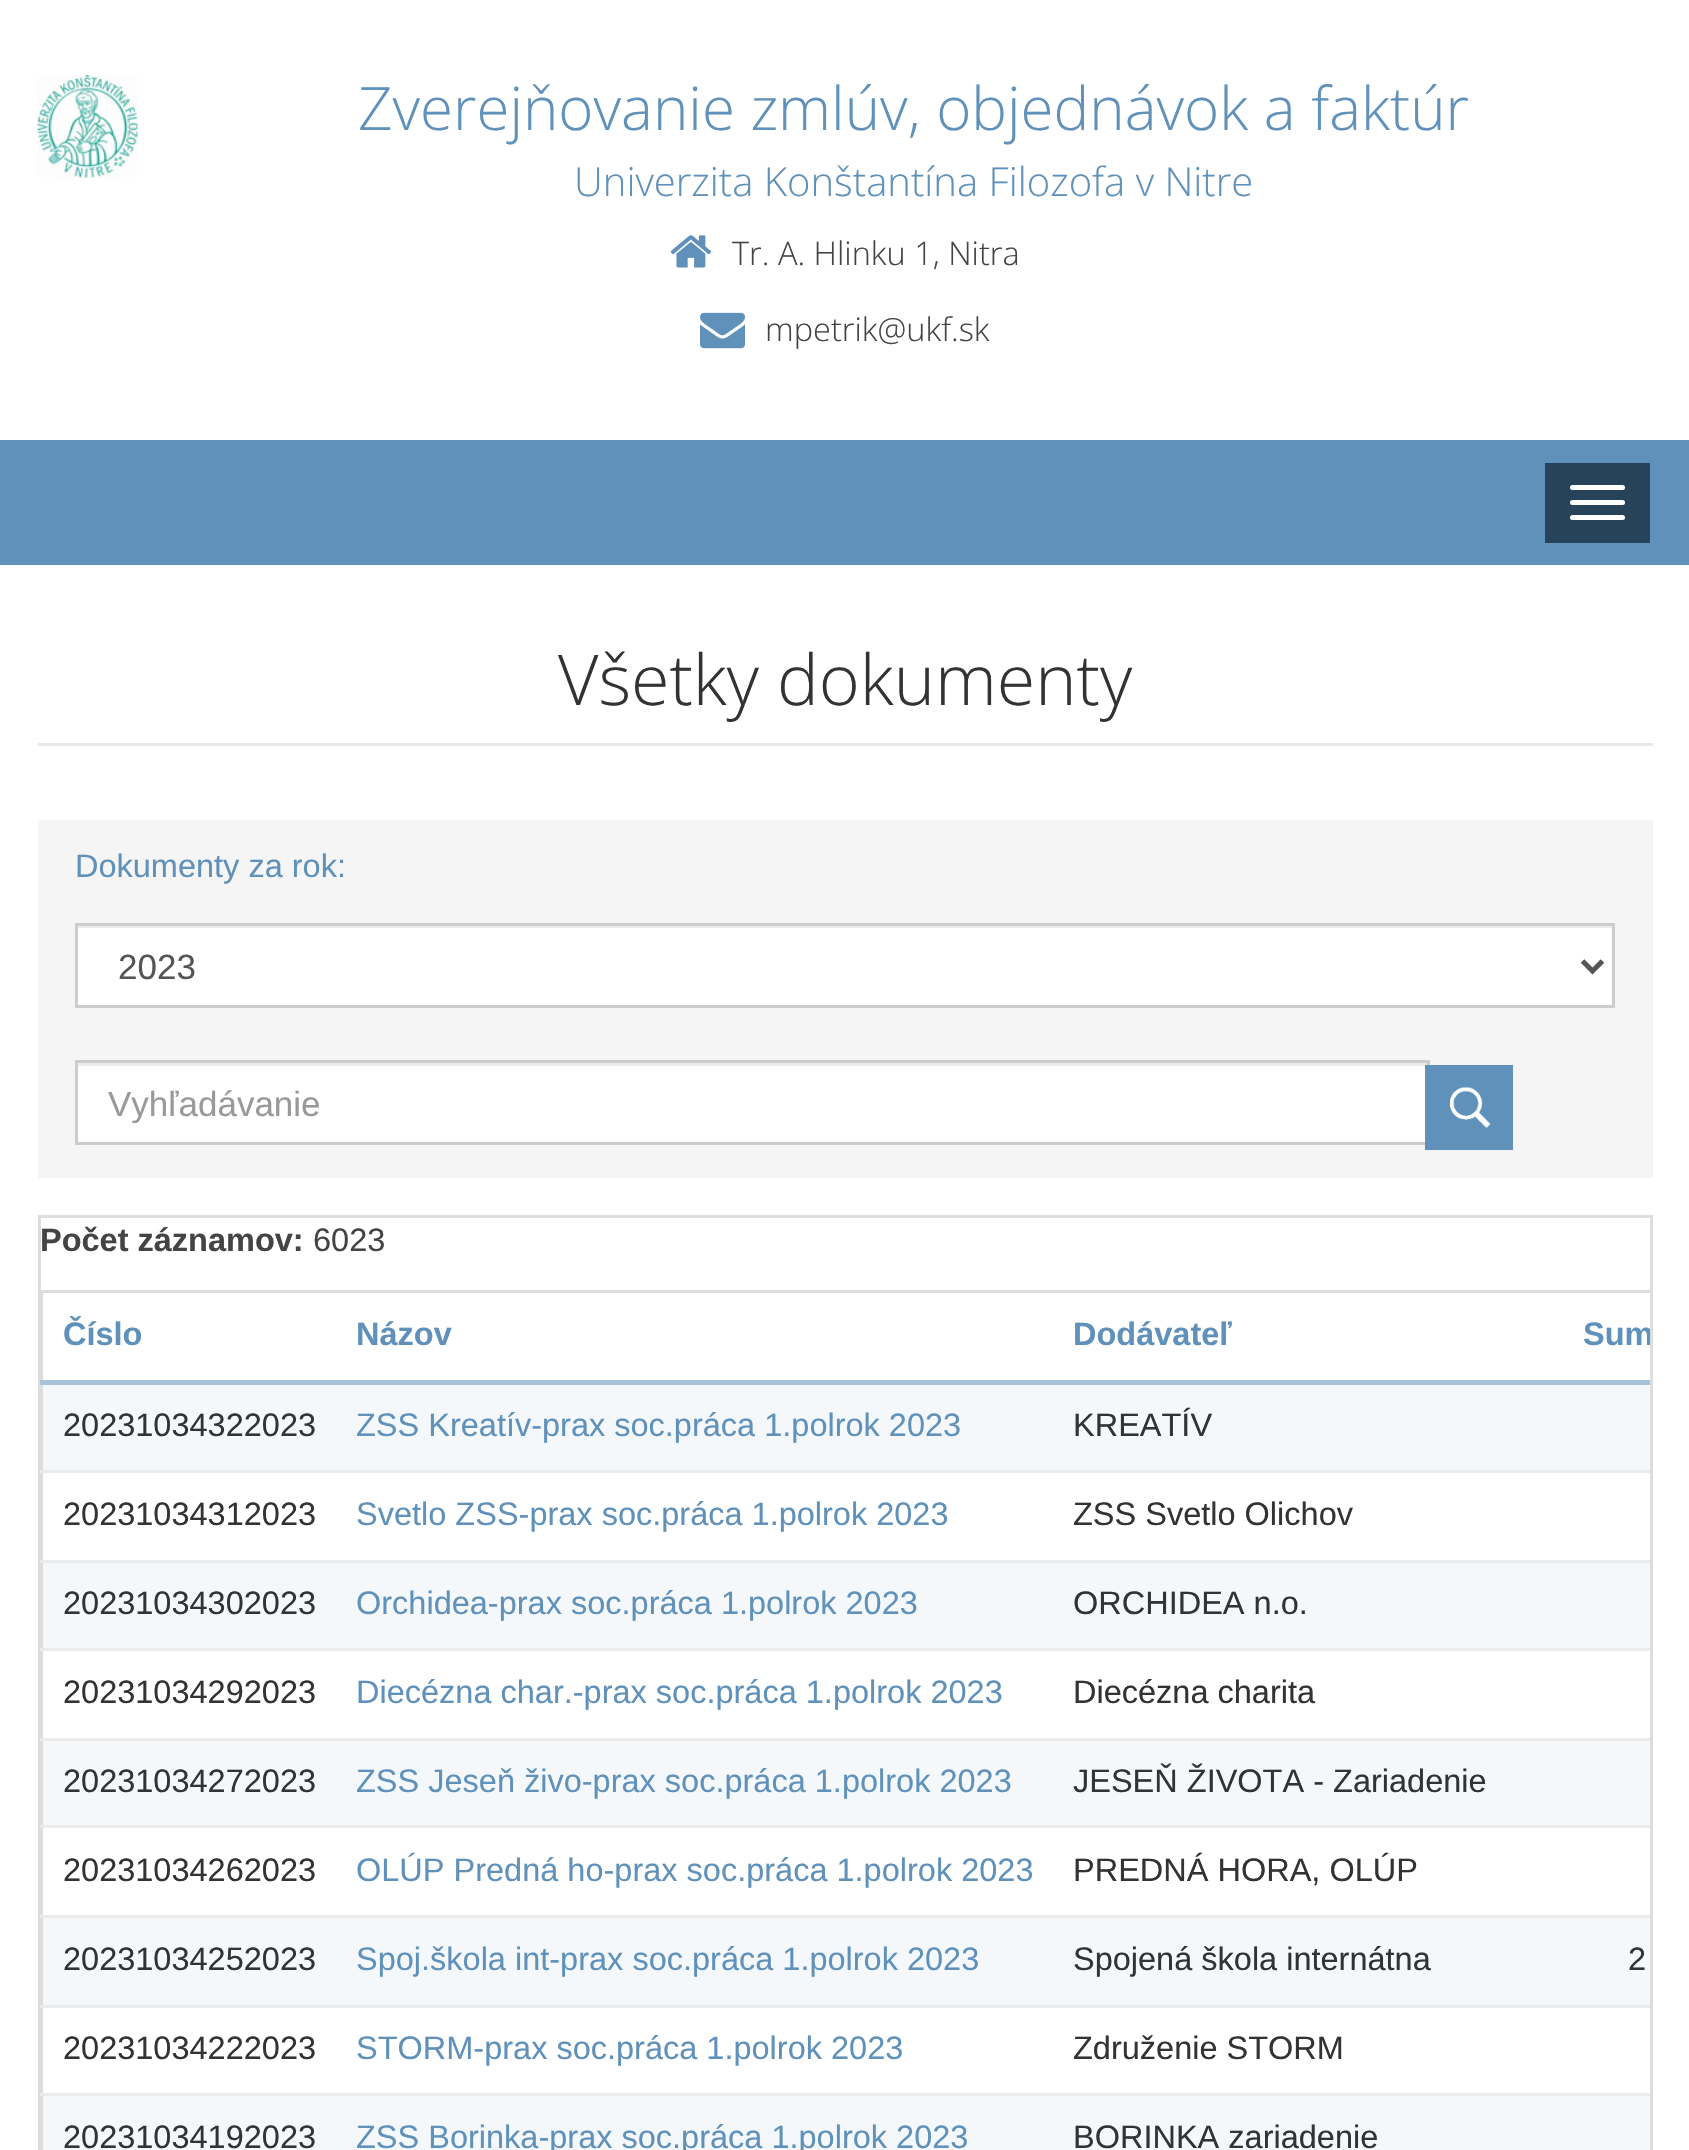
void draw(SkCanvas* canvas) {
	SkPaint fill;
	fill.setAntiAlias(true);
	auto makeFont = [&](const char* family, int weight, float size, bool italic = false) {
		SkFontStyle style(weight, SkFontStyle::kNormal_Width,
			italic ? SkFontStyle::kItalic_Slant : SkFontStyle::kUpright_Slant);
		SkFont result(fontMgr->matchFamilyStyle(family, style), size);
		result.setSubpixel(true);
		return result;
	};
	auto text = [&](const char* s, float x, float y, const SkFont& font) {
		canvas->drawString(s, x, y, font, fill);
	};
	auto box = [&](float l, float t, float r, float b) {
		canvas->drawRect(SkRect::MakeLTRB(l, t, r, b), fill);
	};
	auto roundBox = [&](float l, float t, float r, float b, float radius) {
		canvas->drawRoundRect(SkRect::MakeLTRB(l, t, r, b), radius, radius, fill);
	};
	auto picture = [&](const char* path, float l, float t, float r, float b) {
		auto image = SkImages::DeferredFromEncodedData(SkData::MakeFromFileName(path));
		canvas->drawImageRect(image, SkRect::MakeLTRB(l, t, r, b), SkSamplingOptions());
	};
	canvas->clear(0xFFFFFFFF);
	picture("image0.png", 37, 75, 138, 178);
	picture("image1.png", 670, 235, 712, 268);
	picture("image2.png", 700, 312, 745, 349);
	fill.setColor(0xFF6091BA);
	box(0, 440, 1689, 565);
	fill.setColor(0xFF27435A);
	box(1545, 463, 1650, 543);
	fill.setColor(0xFFFFFFFF);
	roundBox(1570, 485, 1625, 490, 2.5f);
	roundBox(1570, 500, 1625, 505, 2.5f);
	roundBox(1570, 515, 1625, 520, 2.5f);
	fill.setColor(0xFFE8E8E8);
	box(38, 743, 1653, 746);
	fill.setColor(0xFFF5F5F5);
	box(38, 820, 1653, 1178);
	fill.setColor(0xFFFFFFFF);
	box(78, 928, 1612, 1005);
	fill.setColor(0xFFECECEC);
	box(78, 926, 1613, 928);
	fill.setStyle(SkPaint::kStroke_Style);
	fill.setStrokeWidth(3);
	fill.setColor(0xFFCCCCCC);
	canvas->drawRect(SkRect::MakeLTRB(76.5f, 924.5f, 1613.5f, 1006.5f), fill);
	fill.setStrokeWidth(5);
	fill.setColor(0xFF555555);
	canvas->drawPath(SkPathBuilder().moveTo(1582.5f, 961).lineTo(1592.5f, 971).lineTo(1602.5f, 961).detach(), fill);
	fill.setStyle(SkPaint::kFill_Style);
	fill.setColor(0xFFFFFFFF);
	box(78, 1066, 1425, 1142);
	fill.setColor(0xFFECECEC);
	box(78, 1063, 1428, 1066);
	fill.setStyle(SkPaint::kStroke_Style);
	fill.setStrokeWidth(3);
	fill.setColor(0xFFCCCCCC);
	canvas->drawRect(SkRect::MakeLTRB(76.5f, 1061.5f, 1428.5f, 1143.5f), fill);
	fill.setStyle(SkPaint::kFill_Style);
	fill.setColor(0xFF6091BA);
	box(1425, 1065, 1513, 1150);
	picture("image3.png", 1450, 1087, 1490, 1128);
	fill.setStyle(SkPaint::kStroke_Style);
	fill.setColor(0xFFDDDDDD);
	canvas->drawRect(SkRect::MakeLTRB(39.5f, 1216.5f, 1651.5f, 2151.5f), fill);
	fill.setStyle(SkPaint::kFill_Style);
	box(40, 1290, 1650, 1293);
	box(41, 1290, 43, 2150);
	fill.setColor(0xFFA7C2D9);
	box(40, 1380, 1650, 1385);
	fill.setColor(0xFFF5F8FB);
	box(43, 1385, 1650, 1470);
	fill.setColor(0xFFEBEBEB);
	box(40, 1470, 1650, 1473);
	box(40, 1560, 1650, 1563);
	fill.setColor(0xFFF5F8FB);
	box(43, 1563, 1650, 1648);
	fill.setColor(0xFFEBEBEB);
	box(40, 1648, 1650, 1651);
	box(40, 1738, 1650, 1741);
	fill.setColor(0xFFF5F8FB);
	box(43, 1741, 1650, 1825);
	fill.setColor(0xFFEBEBEB);
	box(40, 1825, 1650, 1828);
	fill.setColor(0xFFF5F8FB);
	box(43, 1918, 1650, 2005);
	fill.setColor(0xFFEBEBEB);
	box(40, 1915, 1650, 1918);
	box(40, 2005, 1650, 2008);
	box(40, 2093, 1650, 2096);
	fill.setColor(0xFFF5F8FB);
	box(43, 2096, 1650, 2150);
	auto font1 = makeFont("Open Sans", 300, 60);
	fill.setColor(0xFF6091BA);
	text("Zverejňovanie zmlúv, objednávok a faktúr", 358, 130, font1);
	auto font2 = makeFont("Open Sans", 300, 40);
	text("Univerzita Konštantína Filozofa v Nitre", 574, 196, font2);
	auto font3 = makeFont("Open Sans", 300, 32.5f);
	fill.setColor(0xFF444444);
	text("Tr. A. Hlinku 1, Nitra", 732, 265, font3);
	text("mpetrik@ukf.sk", 765, 341, font3);
	auto font4 = makeFont("Open Sans", 300, 70);
	fill.setColor(0xFF333333);
	text("Všetky dokumenty", 558, 705, font4);
	auto font5 = makeFont("Liberation Sans", 400, 32.5f);
	fill.setColor(0xFF6091BA);
	text("Dokumenty za rok:", 75, 877, font5);
	auto font6 = makeFont("Liberation Sans", 400, 35);
	fill.setColor(0xFF555555);
	text("2023", 118, 979, font6);
	canvas->save();
	canvas->clipRect(SkRect::MakeLTRB(108, 1083, 1398, 1123));
	fill.setColor(0xFF999999);
	text("Vyhľadávanie", 108, 1116, font6);
	canvas->restore();
	auto font7 = makeFont("Liberation Sans", 700, 32.5f);
	fill.setColor(0xFF444444);
	text("Počet záznamov:", 40, 1251, font7);
	text("6023", 313, 1251, font5);
	fill.setColor(0xFF6091BA);
	text("Číslo", 63, 1345, font7);
	text("Názov", 356, 1345, font7);
	text("Dodávateľ", 1073, 1345, font7);
	canvas->save();
	canvas->clipRect(SkRect::MakeLTRB(40, 1218, 1650, 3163));
	text("Sum", 1583, 1345, font7);
	canvas->restore();
	fill.setColor(0xFF333333);
	text("20231034322023", 63, 1436, font5);
	fill.setColor(0xFF6091BA);
	text("ZSS Kreatív-prax soc.práca 1.polrok 2023", 356, 1436, font5);
	fill.setColor(0xFF333333);
	text("KREATÍV", 1073, 1436, font5);
	text("20231034312023", 63, 1525, font5);
	fill.setColor(0xFF6091BA);
	text("Svetlo ZSS-prax soc.práca 1.polrok 2023", 356, 1525, font5);
	fill.setColor(0xFF333333);
	text("ZSS Svetlo Olichov", 1073, 1525, font5);
	text("20231034302023", 63, 1614, font5);
	fill.setColor(0xFF6091BA);
	text("Orchidea-prax soc.práca 1.polrok 2023", 356, 1614, font5);
	fill.setColor(0xFF333333);
	text("ORCHIDEA n.o.", 1073, 1614, font5);
	text("20231034292023", 63, 1703, font5);
	fill.setColor(0xFF6091BA);
	text("Diecézna char.-prax soc.práca 1.polrok 2023", 356, 1703, font5);
	fill.setColor(0xFF333333);
	text("Diecézna charita", 1073, 1703, font5);
	text("20231034272023", 63, 1792, font5);
	fill.setColor(0xFF6091BA);
	text("ZSS Jeseň živo-prax soc.práca 1.polrok 2023", 356, 1792, font5);
	fill.setColor(0xFF333333);
	text("JESEŇ ŽIVOTA - Zariadenie", 1073, 1792, font5);
	text("20231034262023", 63, 1881, font5);
	fill.setColor(0xFF6091BA);
	text("OLÚP Predná ho-prax soc.práca 1.polrok 2023", 356, 1881, font5);
	fill.setColor(0xFF333333);
	text("PREDNÁ HORA, OLÚP", 1073, 1881, font5);
	text("20231034252023", 63, 1970, font5);
	fill.setColor(0xFF6091BA);
	text("Spoj.škola int-prax soc.práca 1.polrok 2023", 356, 1970, font5);
	fill.setColor(0xFF333333);
	text("Spojená škola internátna", 1073, 1970, font5);
	text("2", 1628, 1970, font5);
	text("20231034222023", 63, 2059, font5);
	fill.setColor(0xFF6091BA);
	text("STORM-prax soc.práca 1.polrok 2023", 356, 2059, font5);
	fill.setColor(0xFF333333);
	text("Združenie STORM", 1073, 2059, font5);
	text("20231034192023", 63, 2148, font5);
	fill.setColor(0xFF6091BA);
	text("ZSS Borinka-prax soc.práca 1.polrok 2023", 356, 2148, font5);
	fill.setColor(0xFF333333);
	text("BORINKA zariadenie", 1073, 2148, font5);
}
